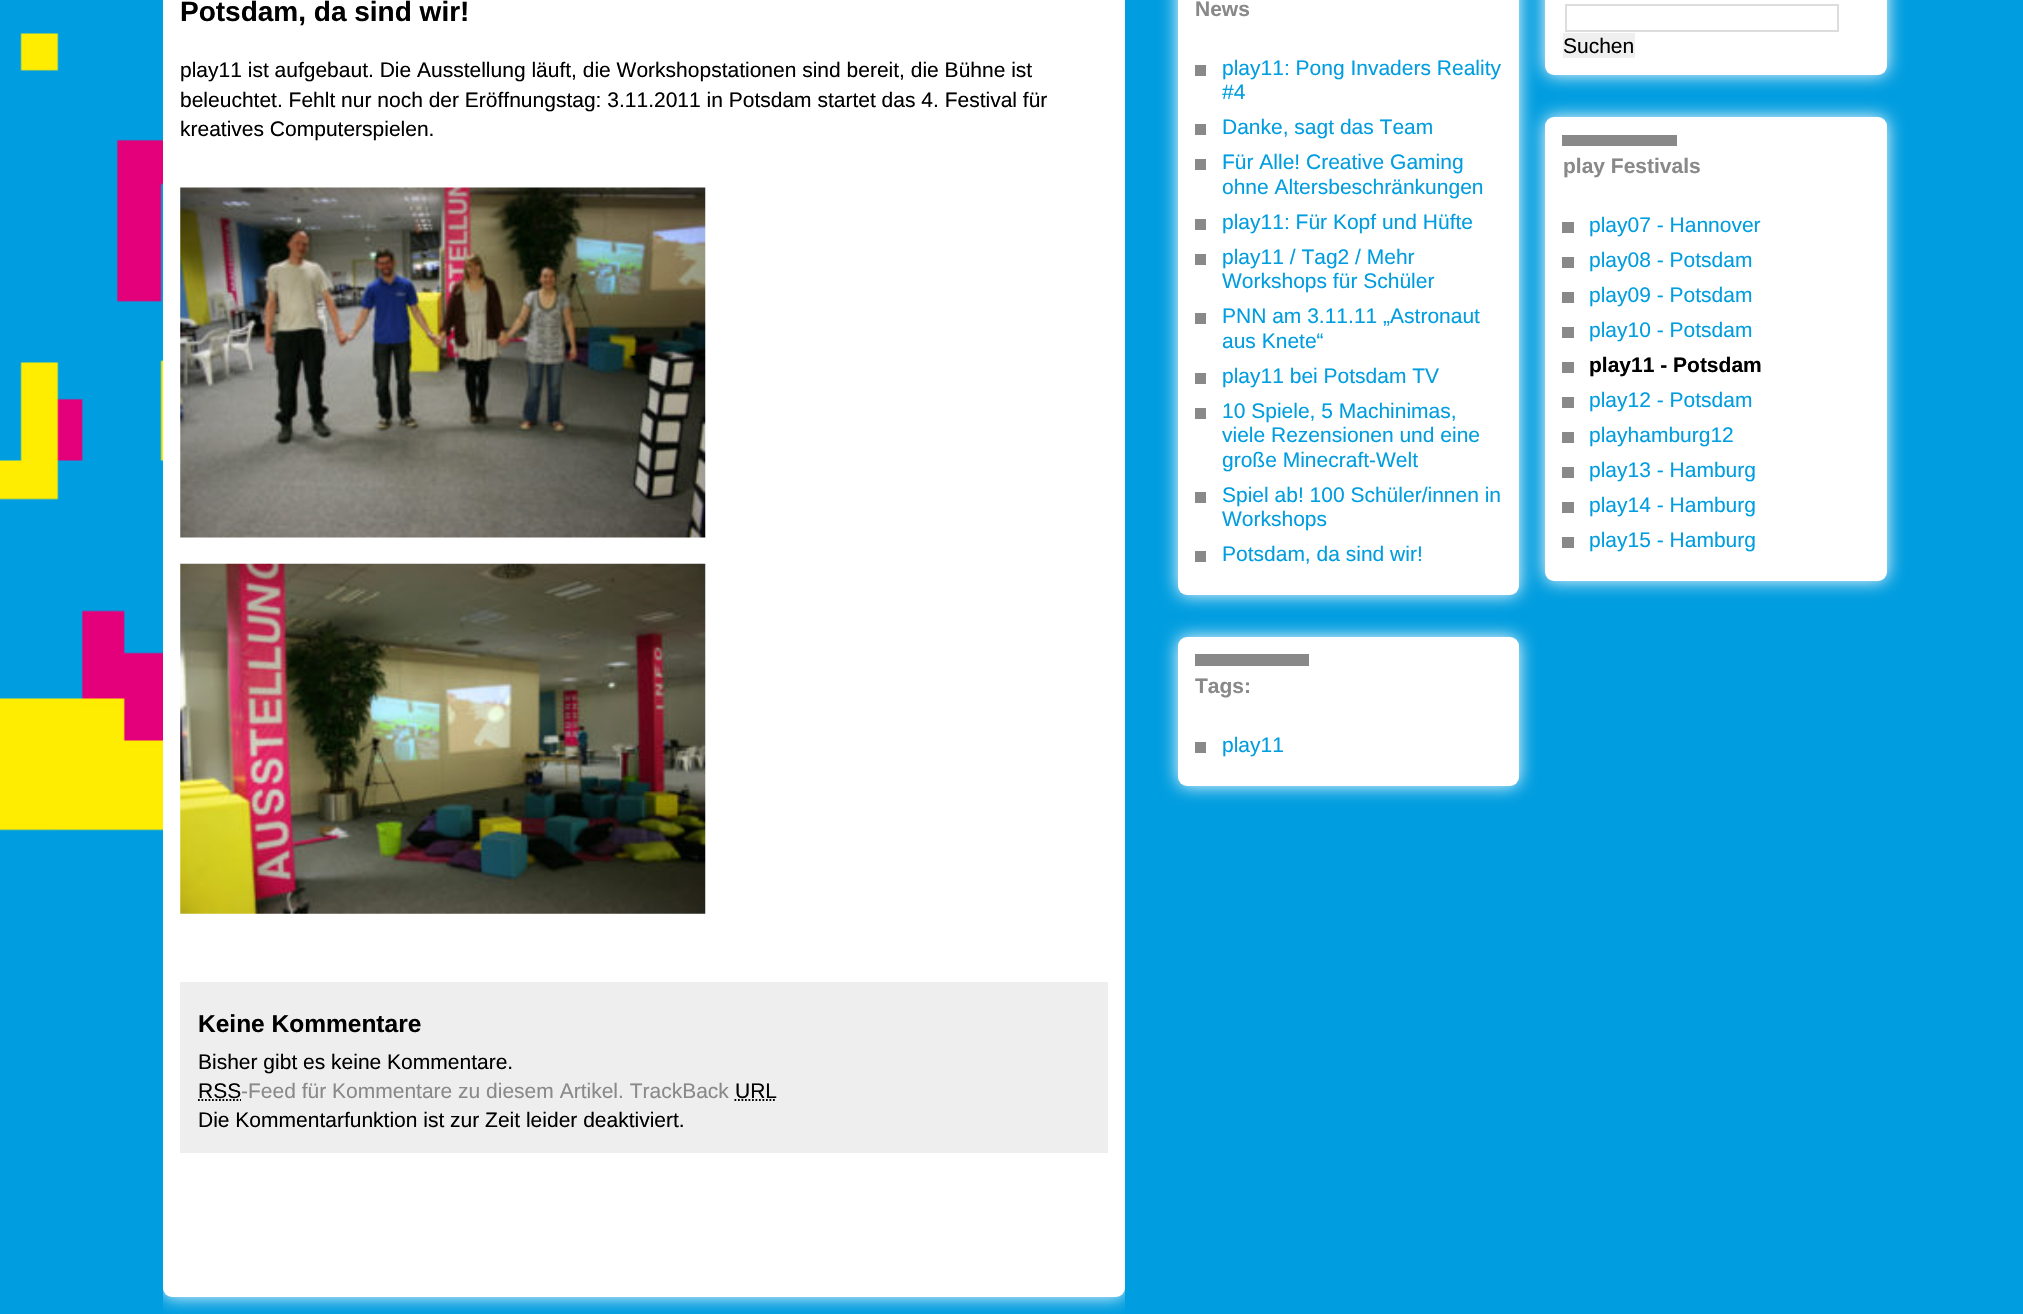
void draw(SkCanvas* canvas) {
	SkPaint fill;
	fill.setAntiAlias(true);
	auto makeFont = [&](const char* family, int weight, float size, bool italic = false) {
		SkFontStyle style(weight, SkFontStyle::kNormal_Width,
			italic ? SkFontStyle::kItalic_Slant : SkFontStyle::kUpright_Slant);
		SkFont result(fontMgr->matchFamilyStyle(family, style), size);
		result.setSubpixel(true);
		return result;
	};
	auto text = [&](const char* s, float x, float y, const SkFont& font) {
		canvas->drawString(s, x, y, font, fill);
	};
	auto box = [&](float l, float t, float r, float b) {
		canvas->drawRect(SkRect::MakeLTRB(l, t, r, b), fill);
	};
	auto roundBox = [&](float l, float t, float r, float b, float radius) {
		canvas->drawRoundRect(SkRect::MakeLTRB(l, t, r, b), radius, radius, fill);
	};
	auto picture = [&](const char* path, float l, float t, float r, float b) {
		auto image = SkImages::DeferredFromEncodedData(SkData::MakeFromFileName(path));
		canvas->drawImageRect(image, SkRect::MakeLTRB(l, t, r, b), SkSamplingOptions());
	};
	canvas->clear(0xFF009DE0);
	picture("image0.png", 0, 33, 163, 831);
	canvas->save();
	canvas->clipRect(SkRect::MakeLTRB(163, 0, 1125, 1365));
	fill.setColor(0xFFFFFFFF);
	fill.setMaskFilter(SkMaskFilter::MakeBlur(kNormal_SkBlurStyle, 9));
	canvas->drawRoundRect(SkRect::MakeLTRB(163, -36, 1125, 1297), 9, 9, fill);
	fill.setMaskFilter(nullptr);
	canvas->restore();
	roundBox(163, -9, 1125, 1297, 9);
	picture("image1.png", 180, 187, 706, 538);
	picture("image2.png", 180, 563, 706, 914);
	fill.setColor(0xFFEEEEEE);
	box(180, 982, 1108, 1153);
	fill.setStyle(SkPaint::kStroke_Style);
	fill.setStrokeWidth(1.8f);
	fill.setColor(0xFF000000);
	fill.setPathEffect(SkDashPathEffect::Make({{1.75f, 1.75f}}, 0));
	canvas->drawPath(SkPathBuilder().moveTo(198, 1100).lineTo(241, 1100).detach(), fill);
	fill.setPathEffect(nullptr);
	fill.setPathEffect(SkDashPathEffect::Make({{1.75f, 1.75f}}, 0));
	canvas->drawPath(SkPathBuilder().moveTo(734.5f, 1100).lineTo(776.5f, 1100).detach(), fill);
	fill.setPathEffect(nullptr);
	fill.setStyle(SkPaint::kFill_Style);
	fill.setColor(0xFFFFFFFF);
	fill.setMaskFilter(SkMaskFilter::MakeBlur(kNormal_SkBlurStyle, 9));
	canvas->drawRoundRect(SkRect::MakeLTRB(1178, -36, 1519, 595), 9, 9, fill);
	fill.setMaskFilter(nullptr);
	roundBox(1178, -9, 1519, 595, 9);
	fill.setColor(0xFF898989);
	box(1195, 65, 1206, 76);
	box(1195, 124, 1206, 135);
	box(1195, 159, 1206, 170);
	box(1195, 219, 1206, 230);
	box(1195, 254, 1206, 265);
	box(1195, 313, 1206, 324);
	box(1195, 373, 1206, 384);
	box(1195, 408, 1206, 419);
	box(1195, 492, 1206, 503);
	box(1195, 551, 1206, 562);
	fill.setColor(0xFFFFFFFF);
	fill.setMaskFilter(SkMaskFilter::MakeBlur(kNormal_SkBlurStyle, 9));
	canvas->drawRoundRect(SkRect::MakeLTRB(1178, 637, 1519, 786), 9, 9, fill);
	fill.setMaskFilter(nullptr);
	roundBox(1178, 637, 1519, 786, 9);
	fill.setColor(0xFF898989);
	box(1195, 654, 1309, 666);
	box(1195, 742, 1206, 753);
	fill.setColor(0xFFFFFFFF);
	fill.setMaskFilter(SkMaskFilter::MakeBlur(kNormal_SkBlurStyle, 9));
	canvas->drawRoundRect(SkRect::MakeLTRB(1545, -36, 1887, 75), 9, 9, fill);
	fill.setMaskFilter(nullptr);
	roundBox(1545, -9, 1887, 75, 9);
	fill.setStyle(SkPaint::kStroke_Style);
	fill.setStrokeWidth(2);
	fill.setColor(0xFFDDDDDD);
	canvas->drawRect(SkRect::MakeLTRB(1566, 5, 1838, 31), fill);
	fill.setStyle(SkPaint::kFill_Style);
	fill.setColor(0xFFEFEFEF);
	box(1563, 33, 1635, 58);
	fill.setColor(0xFFFFFFFF);
	fill.setMaskFilter(SkMaskFilter::MakeBlur(kNormal_SkBlurStyle, 9));
	canvas->drawRoundRect(SkRect::MakeLTRB(1545, 117, 1887, 581), 9, 9, fill);
	fill.setMaskFilter(nullptr);
	roundBox(1545, 117, 1887, 581, 9);
	fill.setColor(0xFF898989);
	box(1562, 135, 1677, 146);
	box(1562, 222, 1574, 233);
	box(1562, 257, 1574, 268);
	box(1562, 292, 1574, 303);
	box(1562, 327, 1574, 338);
	box(1562, 362, 1574, 373);
	box(1562, 397, 1574, 408);
	box(1562, 432, 1574, 443);
	box(1562, 467, 1574, 478);
	box(1562, 502, 1574, 513);
	box(1562, 537, 1574, 548);
	auto font1 = makeFont("Liberation Sans", 700, 28);
	fill.setColor(0xFF000000);
	text("Potsdam, da sind wir!", 180, 21, font1);
	auto font2 = makeFont("Liberation Sans", 400, 21);
	text("play11 ist aufgebaut. Die Ausstellung läuft, die Workshopstationen sind bereit, die Bühne ist", 180, 77, font2);
	text("beleuchtet. Fehlt nur noch der Eröffnungstag: 3.11.2011 in Potsdam startet das 4. Festival für", 180, 107, font2);
	text("kreatives Computerspielen.", 180, 136, font2);
	auto font3 = makeFont("Liberation Sans", 700, 24.5f);
	text("Keine Kommentare", 198, 1032, font3);
	text("Bisher gibt es keine Kommentare.", 198, 1069, font2);
	text("RSS", 198, 1098, font2);
	fill.setColor(0xFF898989);
	text("-Feed für Kommentare zu diesem Artikel. TrackBack", 241, 1098, font2);
	fill.setColor(0xFF000000);
	text("URL", 735, 1098, font2);
	text("Die Kommentarfunktion ist zur Zeit leider deaktiviert.", 198, 1127, font2);
	auto font4 = makeFont("Liberation Sans", 700, 21);
	fill.setColor(0xFF898989);
	text("News", 1195, 16, font4);
	fill.setColor(0xFF009DE0);
	text("play11: Pong Invaders Reality", 1222, 75, font2);
	text("#4", 1222, 99, font2);
	text("Danke, sagt das Team", 1222, 134, font2);
	text("Für Alle! Creative Gaming", 1222, 169, font2);
	text("ohne Altersbeschränkungen", 1222, 194, font2);
	text("play11: Für Kopf und Hüfte", 1222, 229, font2);
	text("play11 / Tag2 / Mehr", 1222, 264, font2);
	text("Workshops für Schüler", 1222, 288, font2);
	text("PNN am 3.11.11 „Astronaut", 1222, 323, font2);
	text("aus Knete“", 1222, 348, font2);
	text("play11 bei Potsdam TV", 1222, 383, font2);
	text("10 Spiele, 5 Machinimas,", 1222, 418, font2);
	text("viele Rezensionen und eine", 1222, 442, font2);
	text("große Minecraft-Welt", 1222, 467, font2);
	text("Spiel ab! 100 Schüler/innen in", 1222, 502, font2);
	text("Workshops", 1222, 526, font2);
	text("Potsdam, da sind wir!", 1222, 561, font2);
	fill.setColor(0xFF898989);
	text("Tags:", 1195, 693, font4);
	fill.setColor(0xFF009DE0);
	text("play11", 1222, 752, font2);
	fill.setColor(0xFF000000);
	text("Suchen", 1563, 53, font2);
	fill.setColor(0xFF898989);
	text("play Festivals", 1563, 173, font4);
	fill.setColor(0xFF009DE0);
	text("play07 - Hannover", 1589, 232, font2);
	text("play08 - Potsdam", 1589, 267, font2);
	text("play09 - Potsdam", 1589, 302, font2);
	text("play10 - Potsdam", 1589, 337, font2);
	fill.setColor(0xFF000000);
	text("play11 - Potsdam", 1589, 372, font4);
	fill.setColor(0xFF009DE0);
	text("play12 - Potsdam", 1589, 407, font2);
	text("playhamburg12", 1589, 442, font2);
	text("play13 - Hamburg", 1589, 477, font2);
	text("play14 - Hamburg", 1589, 512, font2);
	text("play15 - Hamburg", 1589, 547, font2);
}
